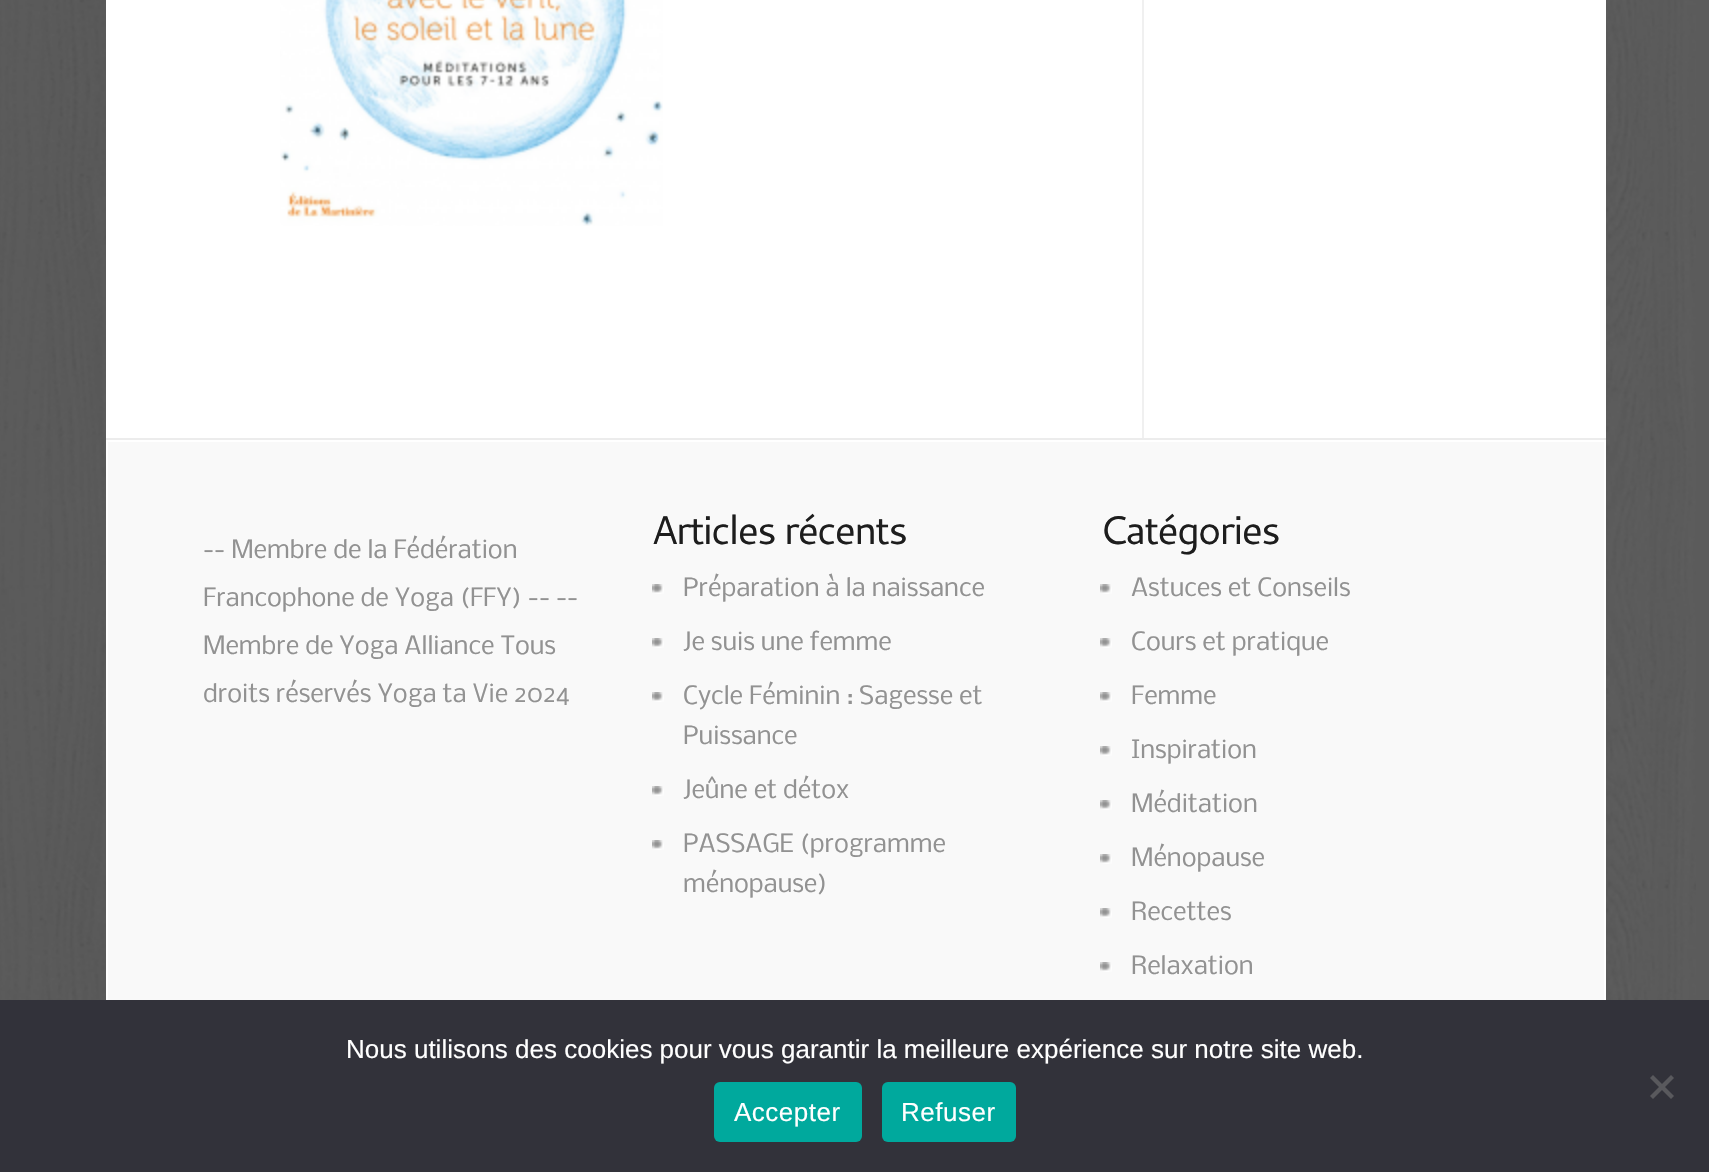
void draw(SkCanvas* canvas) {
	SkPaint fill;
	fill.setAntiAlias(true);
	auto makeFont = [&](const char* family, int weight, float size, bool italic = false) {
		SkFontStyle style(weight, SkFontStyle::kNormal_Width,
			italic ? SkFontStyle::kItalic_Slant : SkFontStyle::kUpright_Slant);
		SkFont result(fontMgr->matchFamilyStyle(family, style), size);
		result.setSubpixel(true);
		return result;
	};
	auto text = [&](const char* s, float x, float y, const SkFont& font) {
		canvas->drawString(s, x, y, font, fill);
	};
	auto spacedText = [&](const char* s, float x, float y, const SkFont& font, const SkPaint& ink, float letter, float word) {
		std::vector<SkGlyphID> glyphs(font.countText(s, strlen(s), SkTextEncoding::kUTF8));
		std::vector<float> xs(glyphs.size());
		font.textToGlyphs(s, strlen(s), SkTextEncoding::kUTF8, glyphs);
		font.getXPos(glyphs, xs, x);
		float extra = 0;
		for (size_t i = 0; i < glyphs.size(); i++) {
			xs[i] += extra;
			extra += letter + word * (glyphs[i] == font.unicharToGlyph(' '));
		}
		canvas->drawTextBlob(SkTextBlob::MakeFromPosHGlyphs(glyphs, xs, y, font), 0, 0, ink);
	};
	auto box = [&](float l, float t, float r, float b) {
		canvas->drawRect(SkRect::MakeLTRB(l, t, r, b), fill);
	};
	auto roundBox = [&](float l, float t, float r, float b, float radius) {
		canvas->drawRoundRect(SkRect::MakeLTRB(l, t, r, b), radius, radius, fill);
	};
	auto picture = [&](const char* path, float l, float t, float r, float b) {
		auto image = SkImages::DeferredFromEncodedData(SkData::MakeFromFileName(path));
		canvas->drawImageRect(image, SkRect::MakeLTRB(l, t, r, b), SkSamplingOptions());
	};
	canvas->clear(0xFF5B5B5B);
	picture("image0.png", 0, 0, 1696, 1000);
	fill.setColor(0xFFFFFFFF);
	box(106, 0, 1606, 1000);
	fill.setColor(0xFFF0F0F0);
	box(1142, 0, 1144, 438);
	picture("image1.png", 280, 0, 663, 226);
	fill.setColor(0xFFECECEC);
	box(106, 438, 1606, 440);
	fill.setColor(0xFFF9F9F9);
	box(108, 442, 1604, 1000);
	picture("image2.png", 652, 584, 664, 594);
	picture("image2.png", 652, 638, 664, 648);
	picture("image2.png", 652, 692, 664, 702);
	picture("image2.png", 652, 786, 664, 796);
	picture("image2.png", 652, 840, 664, 850);
	picture("image2.png", 1100, 584, 1112, 594);
	picture("image2.png", 1100, 638, 1112, 648);
	picture("image2.png", 1100, 692, 1112, 702);
	picture("image2.png", 1100, 746, 1112, 756);
	picture("image2.png", 1100, 800, 1112, 810);
	picture("image2.png", 1100, 854, 1112, 864);
	picture("image2.png", 1100, 908, 1112, 918);
	picture("image2.png", 1100, 962, 1112, 972);
	fill.setColor(0xFF32323A);
	box(0, 1000, 1709, 1172);
	fill.setColor(0xFF59595D);
	canvas->drawPath(SkPathBuilder().moveTo(1671, 1075).lineTo(1674, 1078).lineTo(1653, 1099).lineTo(1650, 1096).close().detach(), fill);
	canvas->drawPath(SkPathBuilder().moveTo(1650, 1078).lineTo(1653, 1075).lineTo(1674, 1096).lineTo(1671, 1099).close().detach(), fill);
	fill.setColor(0xFF00A99D);
	roundBox(714, 1082, 862, 1142, 6);
	roundBox(882, 1082, 1016, 1142, 6);
	auto font1 = makeFont("Nobile", 400, 24);
	fill.setColor(0xFF929292);
	text("-- Membre de la Fédération", 203, 558, font1);
	text("Francophone de Yoga (FFY) -- --", 203, 606, font1);
	text("Membre de Yoga Alliance Tous", 203, 654, font1);
	text("droits réservés Yoga ta Vie 2024", 203, 702, font1);
	auto font2 = makeFont("Cantarell", 400, 40);
	fill.setColor(0xFF1D1D1D);
	spacedText("Articles récents", 651, 544, font2, fill, -2, 0);
	fill.setColor(0xFF929292);
	text("Préparation à la naissance", 683, 596, font1);
	text("Je suis une femme", 683, 650, font1);
	text("Cycle Féminin : Sagesse et", 683, 704, font1);
	text("Puissance", 683, 744, font1);
	text("Jeûne et détox", 683, 798, font1);
	text("PASSAGE (programme", 683, 852, font1);
	text("ménopause)", 683, 892, font1);
	fill.setColor(0xFF1D1D1D);
	spacedText("Catégories", 1099, 544, font2, fill, -2, 0);
	fill.setColor(0xFF929292);
	text("Astuces et Conseils", 1131, 596, font1);
	text("Cours et pratique", 1131, 650, font1);
	text("Femme", 1131, 704, font1);
	text("Inspiration", 1131, 758, font1);
	text("Méditation", 1131, 812, font1);
	text("Ménopause", 1131, 866, font1);
	text("Recettes", 1131, 920, font1);
	text("Relaxation", 1131, 974, font1);
	auto font3 = makeFont("Liberation Sans", 400, 26);
	fill.setColor(0xFFFFFFFF);
	text("Nous utilisons des cookies pour vous garantir la meilleure expérience sur notre site web.", 346, 1058, font3);
	spacedText("Accepter", 734, 1121, font3, fill, 0.5f, 0);
	spacedText("Refuser", 901, 1121, font3, fill, 0.5f, 0);
}
